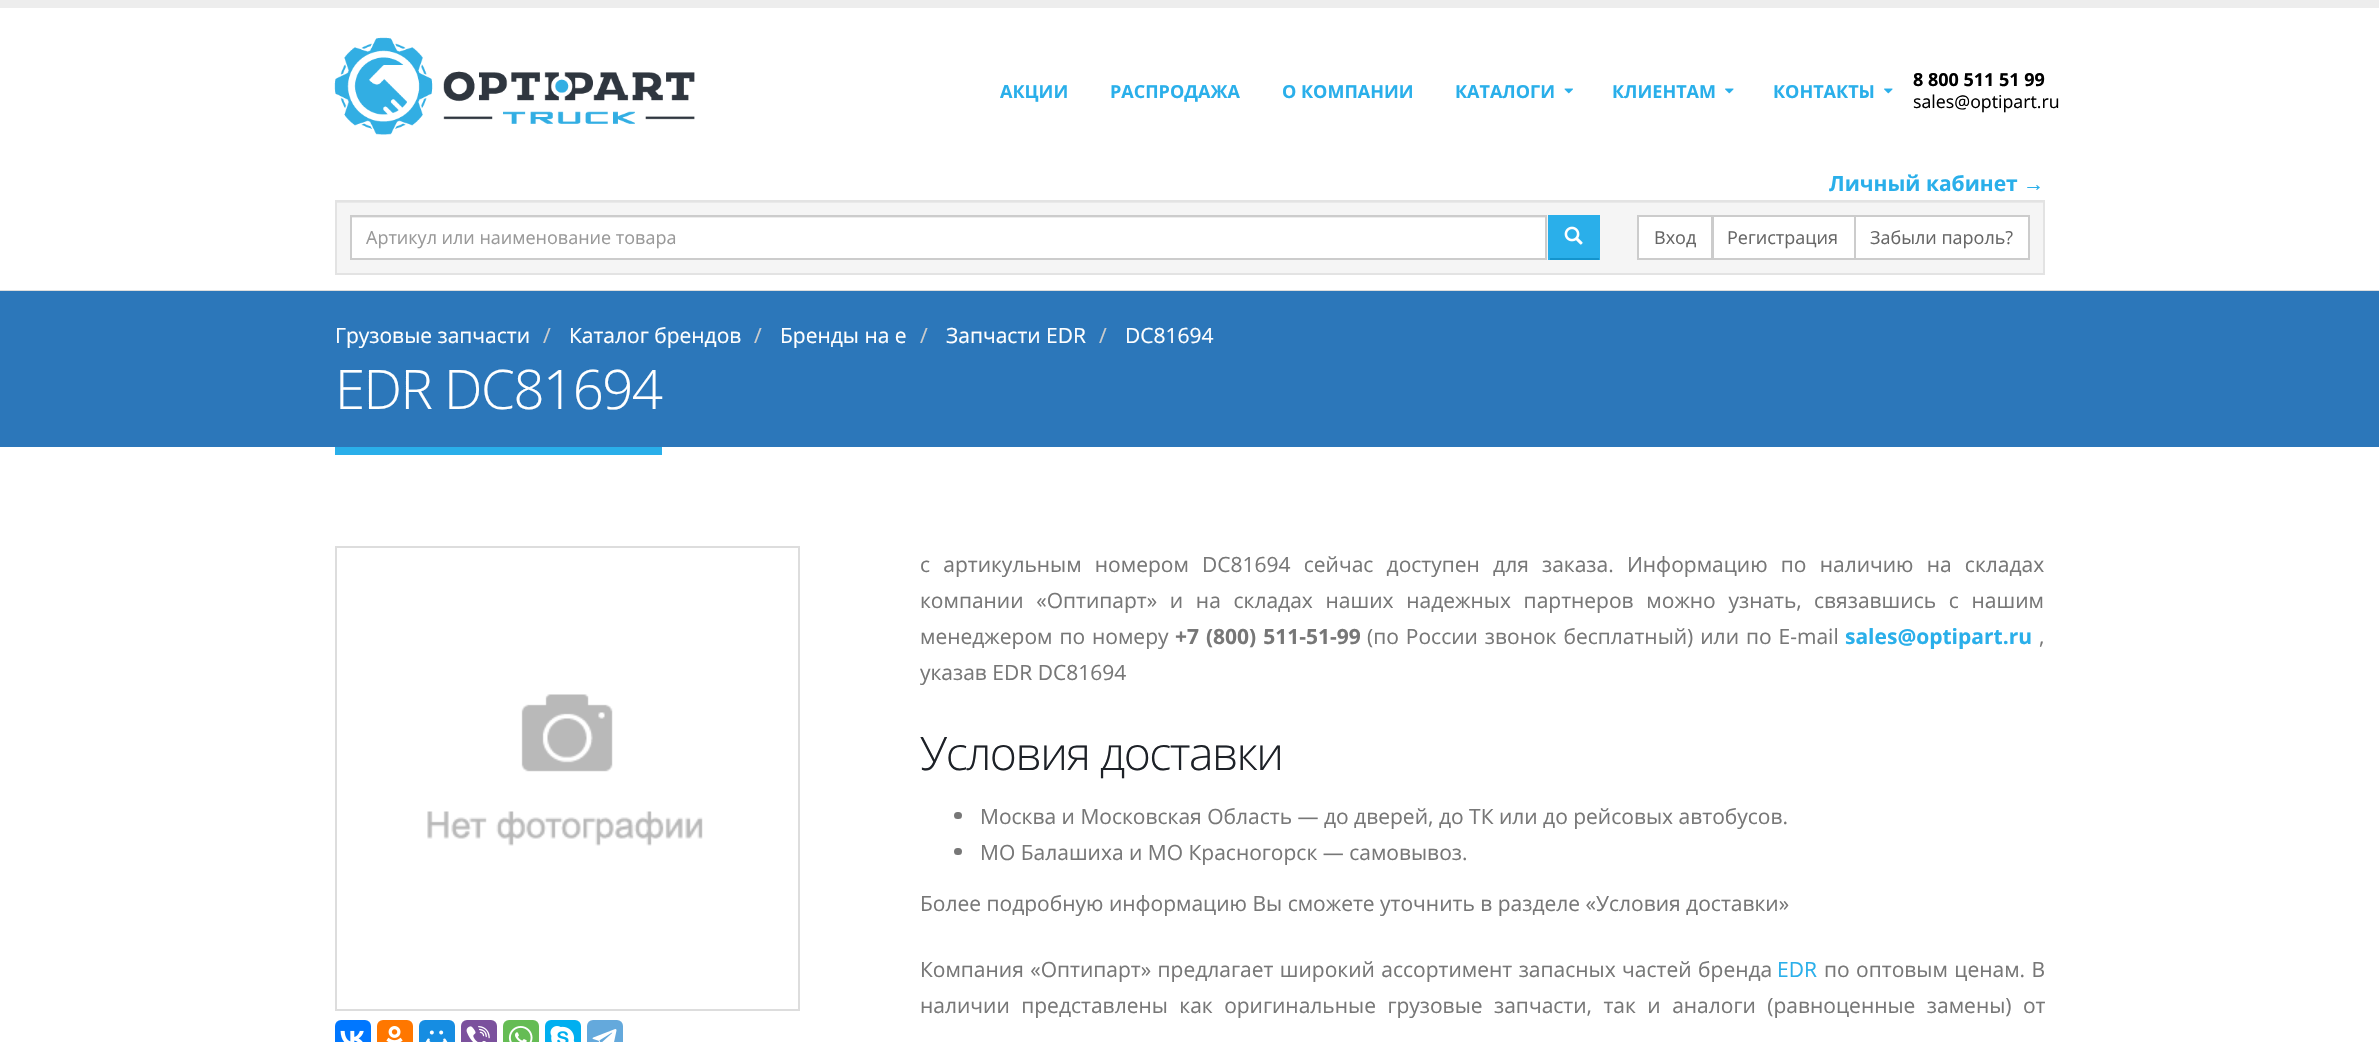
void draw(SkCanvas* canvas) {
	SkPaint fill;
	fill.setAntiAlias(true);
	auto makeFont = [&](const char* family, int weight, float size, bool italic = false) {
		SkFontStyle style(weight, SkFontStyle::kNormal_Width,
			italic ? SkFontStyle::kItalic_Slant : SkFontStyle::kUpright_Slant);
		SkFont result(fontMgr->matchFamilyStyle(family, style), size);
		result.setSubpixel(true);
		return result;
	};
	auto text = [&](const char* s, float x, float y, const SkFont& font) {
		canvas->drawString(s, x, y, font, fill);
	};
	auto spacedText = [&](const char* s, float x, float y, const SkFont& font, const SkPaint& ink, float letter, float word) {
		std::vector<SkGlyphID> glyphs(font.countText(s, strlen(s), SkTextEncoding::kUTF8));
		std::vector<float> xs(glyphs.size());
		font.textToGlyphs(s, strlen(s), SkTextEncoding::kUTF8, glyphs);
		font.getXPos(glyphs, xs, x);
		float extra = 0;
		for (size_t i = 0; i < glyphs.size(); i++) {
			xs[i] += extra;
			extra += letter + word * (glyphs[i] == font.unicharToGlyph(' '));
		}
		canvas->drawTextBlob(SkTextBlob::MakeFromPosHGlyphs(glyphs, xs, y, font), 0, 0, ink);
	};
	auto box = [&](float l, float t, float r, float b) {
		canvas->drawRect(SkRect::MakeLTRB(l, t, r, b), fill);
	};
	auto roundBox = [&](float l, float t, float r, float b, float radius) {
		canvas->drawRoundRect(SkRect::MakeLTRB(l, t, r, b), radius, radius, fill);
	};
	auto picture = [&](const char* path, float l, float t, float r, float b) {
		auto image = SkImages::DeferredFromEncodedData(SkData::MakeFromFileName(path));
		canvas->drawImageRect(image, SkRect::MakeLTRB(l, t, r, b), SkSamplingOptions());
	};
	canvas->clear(0xFFFFFFFF);
	fill.setColor(0xFFEDEDED);
	box(0, 0, 2379, 8);
	picture("image0.png", 334, 37, 695, 135);
	picture("image1.png", 1564, 88, 1573, 94);
	picture("image2.png", 1725, 88, 1734, 94);
	picture("image2.png", 1884, 88, 1893, 94);
	fill.setColor(0xFFDDDDDD);
	box(0, 290, 2379, 291);
	fill.setColor(0xFFF5F5F5);
	box(337, 203, 2043, 273);
	fill.setColor(0xFFE9E9E9);
	box(336, 202, 2043, 203);
	fill.setStyle(SkPaint::kStroke_Style);
	fill.setStrokeWidth(2);
	fill.setColor(0xFFE3E3E3);
	canvas->drawRect(SkRect::MakeLTRB(336, 201, 2044, 274), fill);
	fill.setStyle(SkPaint::kFill_Style);
	fill.setColor(0xFFFFFFFF);
	box(352, 218, 1545, 258);
	fill.setColor(0xFFECECEC);
	box(351, 217, 1545, 218);
	fill.setStyle(SkPaint::kStroke_Style);
	fill.setColor(0xFFCCCCCC);
	canvas->drawRect(SkRect::MakeLTRB(351, 216, 1546, 259), fill);
	fill.setStyle(SkPaint::kFill_Style);
	fill.setColor(0xFF2AAFEA);
	box(1550, 215, 1598, 258);
	box(1598, 215, 1600, 260);
	fill.setColor(0xFF1494CD);
	box(1548, 258, 1599, 260);
	fill.setColor(0xFF2AAFEA);
	box(1548, 215, 1550, 260);
	picture("image3.png", 1564, 226, 1583, 245);
	fill.setColor(0xFFFFFFFF);
	canvas->drawRect(SkRect::MakeLTRB(1638, 216, 1712, 259), fill);
	fill.setStyle(SkPaint::kStroke_Style);
	fill.setColor(0xFFCCCCCC);
	canvas->drawRect(SkRect::MakeLTRB(1638, 216, 1712, 259), fill);
	fill.setStyle(SkPaint::kFill_Style);
	fill.setColor(0xFFFFFFFF);
	canvas->drawRect(SkRect::MakeLTRB(1713, 216, 1855, 259), fill);
	fill.setStyle(SkPaint::kStroke_Style);
	fill.setColor(0xFFCCCCCC);
	canvas->drawRect(SkRect::MakeLTRB(1713, 216, 1855, 259), fill);
	fill.setStyle(SkPaint::kFill_Style);
	fill.setColor(0xFFFFFFFF);
	canvas->drawRect(SkRect::MakeLTRB(1855, 216, 2029, 259), fill);
	fill.setStyle(SkPaint::kStroke_Style);
	fill.setColor(0xFFCCCCCC);
	canvas->drawRect(SkRect::MakeLTRB(1855, 216, 2029, 259), fill);
	fill.setStyle(SkPaint::kFill_Style);
	fill.setColor(0xFF2C77BA);
	box(0, 291, 2379, 447);
	fill.setColor(0xFF2AAFEA);
	box(335, 447, 662, 455);
	fill.setStyle(SkPaint::kStroke_Style);
	fill.setColor(0xFFDDDDDD);
	canvas->drawRect(SkRect::MakeLTRB(336, 547, 799, 1010), fill);
	picture("image4.png", 427, 694, 703, 846);
	fill.setStyle(SkPaint::kFill_Style);
	fill.setColor(0xFF0077FF);
	roundBox(335, 1020, 371, 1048, 6);
	picture("image5.png", 340, 1030, 364, 1042);
	fill.setColor(0xFFFF7700);
	roundBox(377, 1020, 413, 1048, 6);
	picture("image6.png", 386, 1026, 403, 1042);
	fill.setColor(0xFF168DE2);
	roundBox(419, 1020, 455, 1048, 6);
	picture("image7.png", 425, 1030, 448, 1042);
	fill.setColor(0xFF7B519D);
	roundBox(461, 1020, 497, 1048, 6);
	picture("image8.png", 466, 1026, 490, 1042);
	fill.setColor(0xFF65BC54);
	roundBox(503, 1020, 539, 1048, 6);
	picture("image9.png", 508, 1026, 533, 1042);
	fill.setColor(0xFF00AFF0);
	roundBox(545, 1020, 581, 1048, 6);
	picture("image10.png", 550, 1026, 575, 1042);
	fill.setColor(0xFF64A9DC);
	roundBox(587, 1020, 623, 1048, 6);
	picture("image11.png", 592, 1029, 617, 1042);
	fill.setColor(0xFF777777);
	roundBox(954, 812, 962, 819, 3.5f);
	roundBox(954, 848, 962, 855, 3.5f);
	auto font1 = makeFont("Open Sans", 700, 18);
	fill.setColor(0xFF2AAFEA);
	text("АКЦИИ", 1000, 98, font1);
	text("РАСПРОДАЖА", 1110, 98, font1);
	text("О КОМПАНИИ", 1282, 98, font1);
	text("КАТАЛОГИ", 1455, 98, font1);
	text("КЛИЕНТАМ", 1612, 98, font1);
	text("КОНТАКТЫ", 1773, 98, font1);
	fill.setColor(0xFF000000);
	text("8 800 511 51 99", 1913, 86, font1);
	auto font2 = makeFont("Open Sans", 400, 17.75f);
	text("sales@optipart.ru", 1913, 108, font2);
	auto font3 = makeFont("Open Sans", 700, 21);
	fill.setColor(0xFF2AAFEA);
	text("Личный кабинет", 1829, 191, font3);
	auto font4 = makeFont("Liberation Sans", 700, 21);
	text("→", 2023, 191, font4);
	auto font5 = makeFont("Open Sans", 400, 18);
	fill.setColor(0xFF999999);
	text("Артикул или наименование товара", 366, 244, font5);
	fill.setColor(0xFF666666);
	text("Вход", 1654, 244, font5);
	text("Регистрация", 1727, 244, font5);
	text("Забыли пароль?", 1870, 244, font5);
	auto font6 = makeFont("Open Sans", 400, 21);
	fill.setColor(0xFFFFFFFF);
	text("Грузовые запчасти", 335, 343, font6);
	fill.setColor(0xFFCCCCCC);
	text("/", 543, 343, font6);
	fill.setColor(0xFFFFFFFF);
	text("Каталог брендов", 569, 343, font6);
	fill.setColor(0xFFCCCCCC);
	text("/", 754, 343, font6);
	fill.setColor(0xFFFFFFFF);
	text("Бренды на e", 780, 343, font6);
	fill.setColor(0xFFCCCCCC);
	text("/", 920, 343, font6);
	fill.setColor(0xFFFFFFFF);
	text("Запчасти EDR", 946, 343, font6);
	fill.setColor(0xFFCCCCCC);
	text("/", 1099, 343, font6);
	fill.setColor(0xFFFFFFFF);
	text("DC81694", 1125, 343, font6);
	auto font7 = makeFont("Open Sans", 300, 54.5f);
	spacedText("EDR DC81694", 335, 409, font7, fill, -1.5f, 0);
	fill.setColor(0xFF777777);
	spacedText("с артикульным номером DC81694 сейчас доступен для заказа. Информацию по наличию на складах", 920, 572, font6, fill, 0, 7.75f);
	spacedText("компании «Оптипарт» и на складах наших надежных партнеров можно узнать,", 920, 608, font6, fill, 0, 7.25f);
	spacedText("связавшись с нашим", 1814, 608, font6, fill, 0, 7.25f);
	spacedText("менеджером по номеру", 920, 644, font6, fill, 0, 1.5f);
	spacedText("+7 (800) 511-51-99", 1175, 644, font3, fill, 0, 1.5f);
	spacedText("(по России звонок бесплатный) или по E-mail", 1367, 644, font6, fill, 0, 1.5f);
	fill.setColor(0xFF2AAFEA);
	text("sales@optipart.ru", 1845, 644, font3);
	fill.setColor(0xFF777777);
	text(",", 2039, 644, font6);
	text("указав EDR DC81694", 920, 680, font6);
	auto font8 = makeFont("Open Sans", 300, 46.25f);
	fill.setColor(0xFF1D2127);
	spacedText("Условия доставки", 920, 770, font8, fill, -1.5f, 0);
	fill.setColor(0xFF777777);
	text("Москва и Московская Область — до дверей, до ТК или до рейсовых автобусов.", 980, 824, font6);
	text("МО Балашиха и МО Красногорск — самовывоз.", 980, 860, font6);
	text("Более подробную информацию Вы сможете уточнить в разделе «Условия доставки»", 920, 911, font6);
	spacedText("Компания «Оптипарт» предлагает широкий ассортимент запасных частей бренда", 920, 977, font6, fill, 0, 1);
	fill.setColor(0xFF2AAFEA);
	text("EDR", 1777, 977, font6);
	fill.setColor(0xFF777777);
	spacedText("по оптовым ценам. В", 1824, 977, font6, fill, 0, 1);
	spacedText("наличии представлены как оригинальные грузовые запчасти, так и аналоги (равноценные замены) от", 920, 1013, font6, fill, 0, 6);
}
